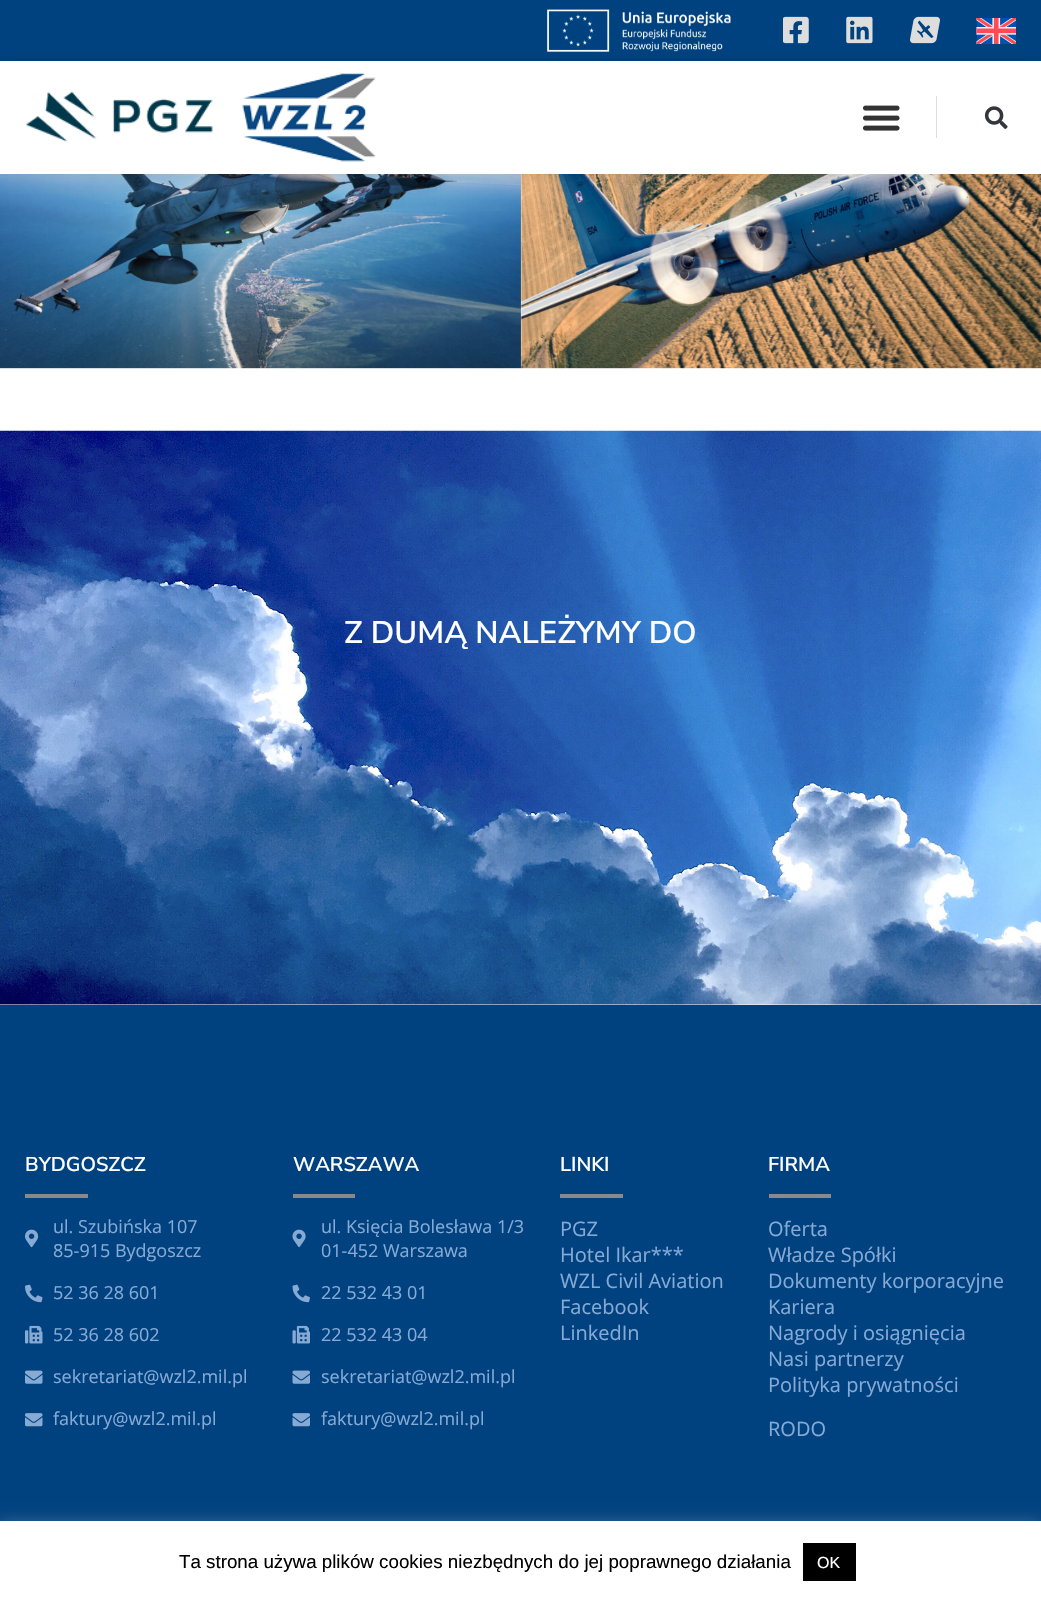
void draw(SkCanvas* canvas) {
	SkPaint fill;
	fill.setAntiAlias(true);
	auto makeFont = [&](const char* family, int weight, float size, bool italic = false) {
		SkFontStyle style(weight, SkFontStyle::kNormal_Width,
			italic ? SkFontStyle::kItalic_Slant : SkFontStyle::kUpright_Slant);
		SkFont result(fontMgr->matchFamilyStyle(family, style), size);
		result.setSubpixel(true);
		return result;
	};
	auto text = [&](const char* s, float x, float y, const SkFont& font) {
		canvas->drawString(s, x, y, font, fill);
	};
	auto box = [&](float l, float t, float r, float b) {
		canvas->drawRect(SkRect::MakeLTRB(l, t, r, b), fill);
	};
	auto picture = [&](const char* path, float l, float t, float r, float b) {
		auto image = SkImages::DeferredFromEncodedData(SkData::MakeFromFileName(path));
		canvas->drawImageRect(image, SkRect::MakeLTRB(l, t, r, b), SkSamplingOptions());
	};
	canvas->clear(0xFFFFFFFF);
	fill.setColor(0xFF004280);
	box(0, 0, 1041, 61);
	picture("image0.png", 547, 9, 731, 52);
	picture("image1.png", 783, 16, 809, 44);
	picture("image2.png", 846, 16, 873, 44);
	picture("image3.png", 910, 16, 940, 44);
	picture("image4.png", 976, 18, 1016, 44);
	picture("image9.png", 0, 174, 521, 369);
	picture("image10.png", 520, 174, 1041, 369);
	fill.setColor(0x1A000000);
	fill.setMaskFilter(SkMaskFilter::MakeBlur(kNormal_SkBlurStyle, 6));
	canvas->drawRect(SkRect::MakeLTRB(0, 61, 1041, 174), fill);
	fill.setMaskFilter(nullptr);
	fill.setColor(0xFFFFFFFF);
	box(0, 61, 1041, 174);
	picture("image5.png", 26, 91, 213, 142);
	picture("image6.png", 242, 73, 376, 162);
	picture("image7.png", 863, 105, 900, 131);
	fill.setColor(0xFFDDDDDD);
	box(936, 96, 937, 138);
	picture("image8.png", 984, 106, 1008, 129);
	picture("image11.png", 0, 430, 1041, 1005);
	fill.setColor(0xFF004280);
	box(0, 1005, 1041, 1521);
	fill.setColor(0xFF898989);
	box(25, 1194, 88, 1198);
	picture("image12.png", 25, 1229, 39, 1248);
	picture("image13.png", 25, 1284, 43, 1303);
	picture("image14.png", 25, 1325, 43, 1344);
	picture("image15.png", 25, 1370, 43, 1384);
	picture("image16.png", 25, 1413, 43, 1427);
	box(293, 1194, 355, 1198);
	picture("image17.png", 292, 1229, 306, 1248);
	picture("image18.png", 292, 1284, 310, 1303);
	picture("image19.png", 292, 1325, 310, 1344);
	picture("image20.png", 292, 1370, 310, 1384);
	picture("image21.png", 292, 1413, 310, 1427);
	box(560, 1194, 623, 1198);
	box(769, 1194, 831, 1198);
	fill.setColor(0x4DACABAB);
	fill.setMaskFilter(SkMaskFilter::MakeBlur(kNormal_SkBlurStyle, 6));
	canvas->drawRect(SkRect::MakeLTRB(0, 1520, 1041, 1601), fill);
	fill.setMaskFilter(nullptr);
	fill.setColor(0xFFFFFFFF);
	box(0, 1521, 1041, 1602);
	fill.setColor(0xFF000000);
	box(803, 1543, 856, 1581);
	auto font1 = makeFont("Nunito Sans", 600, 31.25f);
	fill.setColor(0xFFFFFFFF);
	text("Z DUMĄ NALEŻYMY DO", 344, 643, font1);
	auto font2 = makeFont("Nunito Sans", 600, 20);
	text("BYDGOSZCZ", 25, 1171, font2);
	auto font3 = makeFont("Open Sans", 400, 18);
	fill.setColor(0xFF87AAD5);
	text("ul. Szubińska 107", 53, 1233, font3);
	text("85-915 Bydgoszcz", 53, 1257, font3);
	text("52 36 28 601", 53, 1299, font3);
	text("52 36 28 602", 53, 1341, font3);
	text("sekretariat@wzl2.mil.pl", 53, 1383, font3);
	text("faktury@wzl2.mil.pl", 53, 1425, font3);
	fill.setColor(0xFFFFFFFF);
	text("WARSZAWA", 293, 1171, font2);
	fill.setColor(0xFF87AAD5);
	text("ul. Księcia Bolesława 1/3", 321, 1233, font3);
	text("01-452 Warszawa", 321, 1257, font3);
	text("22 532 43 01", 321, 1299, font3);
	text("22 532 43 04", 321, 1341, font3);
	text("sekretariat@wzl2.mil.pl", 321, 1383, font3);
	text("faktury@wzl2.mil.pl", 321, 1425, font3);
	fill.setColor(0xFFFFFFFF);
	text("LINKI", 560, 1171, font2);
	auto font4 = makeFont("Open Sans", 400, 20);
	fill.setColor(0xFF87AAD5);
	text("PGZ", 560, 1236, font4);
	text("Hotel Ikar***", 560, 1262, font4);
	text("WZL Civil Aviation", 560, 1288, font4);
	text("Facebook", 560, 1314, font4);
	text("LinkedIn", 560, 1340, font4);
	fill.setColor(0xFFFFFFFF);
	text("FIRMA", 768, 1171, font2);
	fill.setColor(0xFF87AAD5);
	text("Oferta", 768, 1236, font4);
	text("Władze Spółki", 768, 1262, font4);
	text("Dokumenty korporacyjne", 768, 1288, font4);
	text("Kariera", 768, 1314, font4);
	text("Nagrody i osiągnięcia", 768, 1340, font4);
	text("Nasi partnerzy", 768, 1366, font4);
	text("Polityka prywatności", 768, 1392, font4);
	text("RODO", 768, 1436, font4);
	auto font5 = makeFont("Liberation Sans", 400, 18.75f);
	fill.setColor(0xFF000000);
	text("Ta strona używa plików cookies niezbędnych do jej poprawnego działania", 179, 1568, font5);
	auto font6 = makeFont("Liberation Sans", 400, 16);
	fill.setColor(0xFFFFFFFF);
	text("OK", 817, 1568, font6);
}
